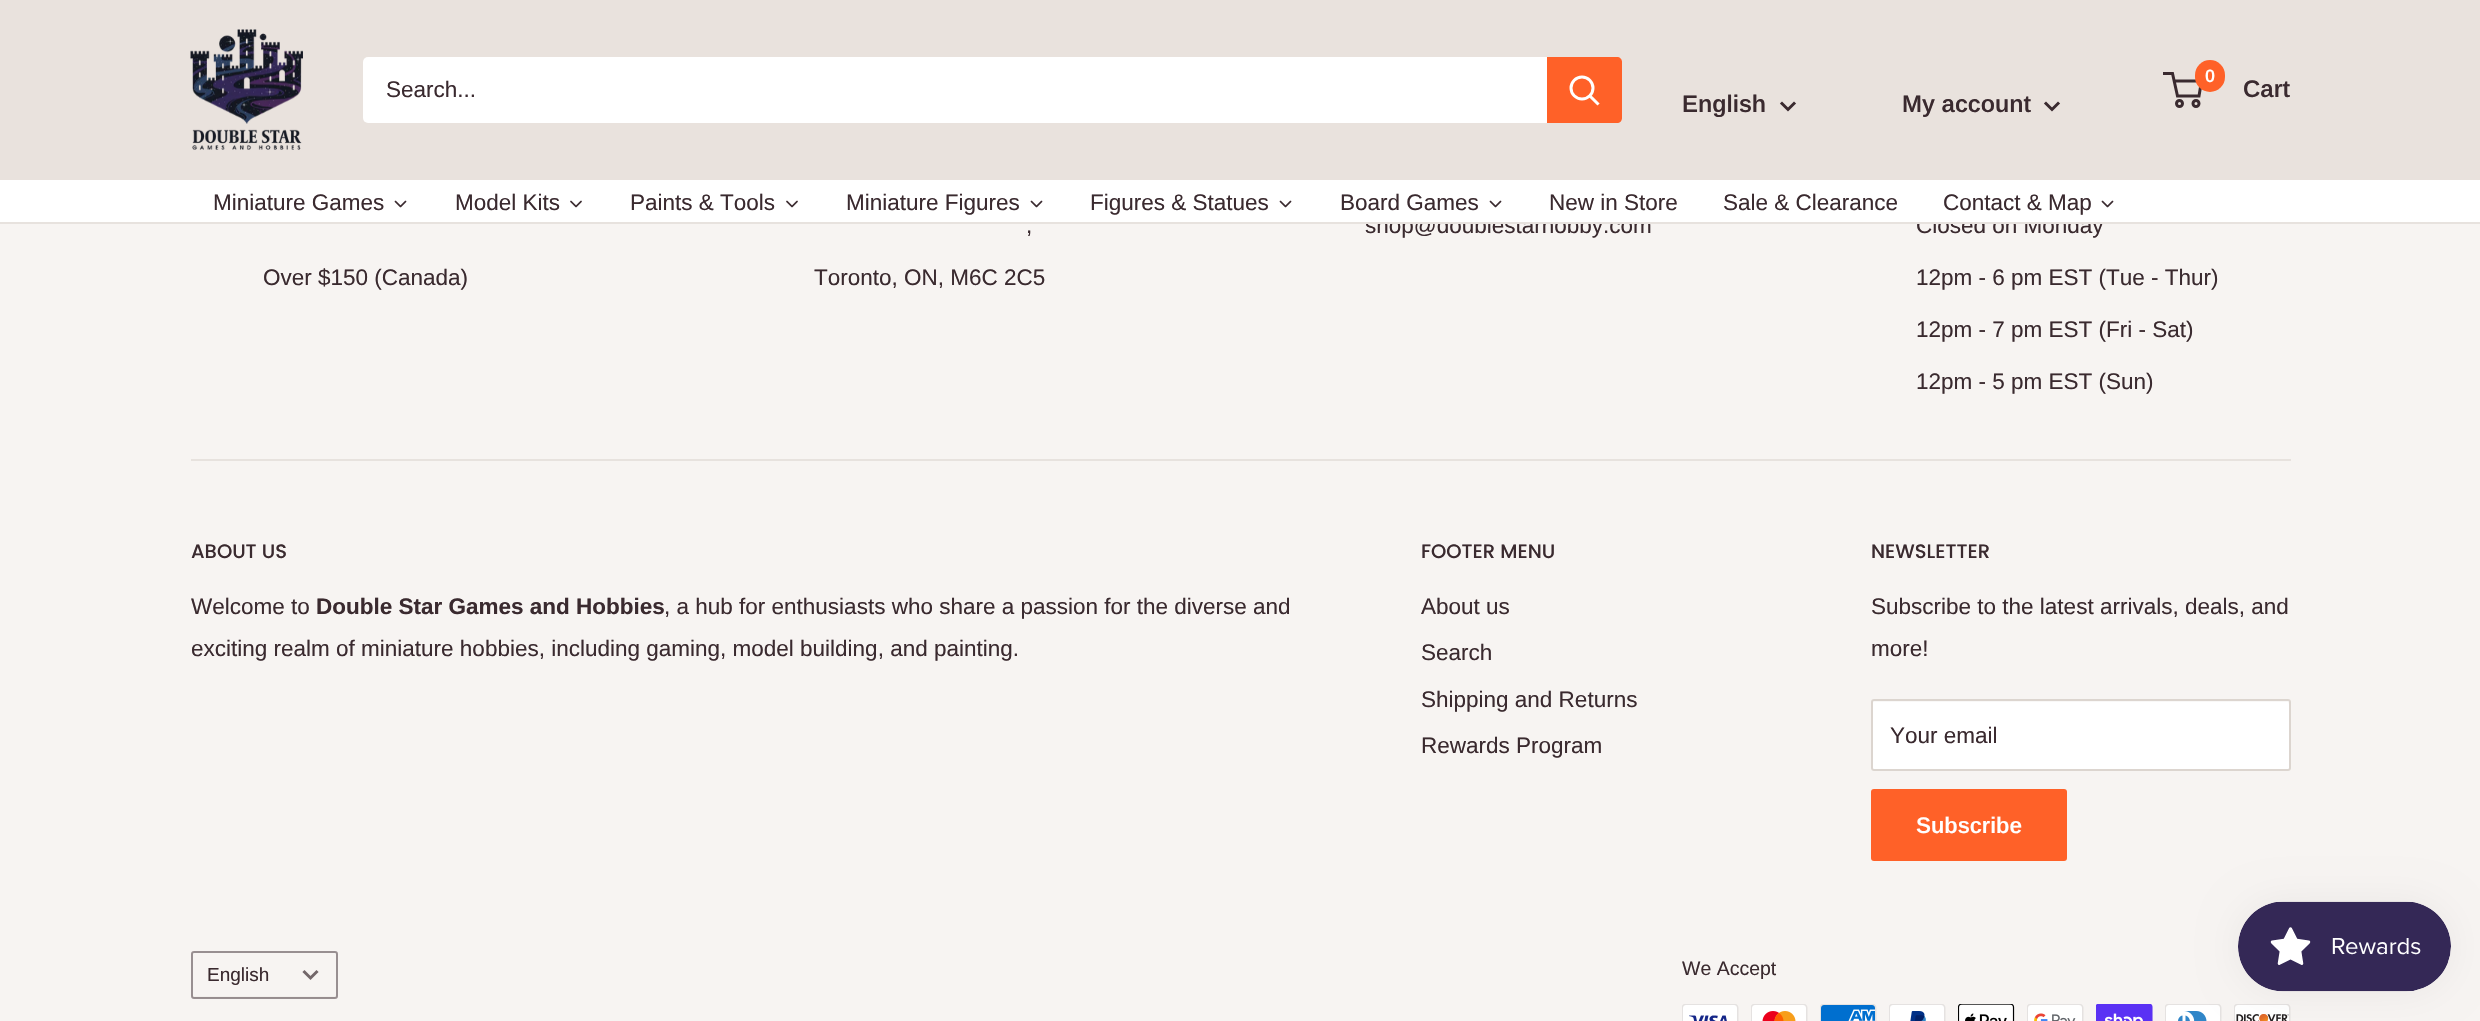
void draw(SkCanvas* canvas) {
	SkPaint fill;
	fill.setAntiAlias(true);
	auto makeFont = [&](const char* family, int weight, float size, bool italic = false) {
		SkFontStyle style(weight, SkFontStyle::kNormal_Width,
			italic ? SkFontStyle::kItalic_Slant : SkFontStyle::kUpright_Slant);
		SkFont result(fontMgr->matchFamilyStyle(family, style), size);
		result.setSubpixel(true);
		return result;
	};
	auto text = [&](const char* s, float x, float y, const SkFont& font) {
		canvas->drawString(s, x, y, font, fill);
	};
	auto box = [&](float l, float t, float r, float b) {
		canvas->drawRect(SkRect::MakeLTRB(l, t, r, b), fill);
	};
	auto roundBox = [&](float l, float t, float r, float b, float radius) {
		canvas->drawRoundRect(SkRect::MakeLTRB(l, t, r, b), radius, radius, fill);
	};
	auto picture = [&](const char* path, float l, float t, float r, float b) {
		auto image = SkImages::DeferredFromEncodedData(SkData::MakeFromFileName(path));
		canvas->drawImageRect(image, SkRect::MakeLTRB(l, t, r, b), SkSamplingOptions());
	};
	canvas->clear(0xFFF7F4F2);
	fill.setColor(0xFFE9E2DD);
	box(0, 0, 2480, 180);
	picture("image0.png", 190, 29, 303, 150);
	fill.setColor(0xFFFFFFFF);
	roundBox(363, 57, 1622, 123, 5);
	fill.setColor(0xFFFF6128);
	canvas->drawPath(SkPathBuilder().moveTo(1547, 57).lineTo(1617, 57).cubicTo(1620, 57, 1622, 59, 1622, 62).lineTo(1622, 118).cubicTo(1622, 121, 1620, 123, 1617, 123).lineTo(1547, 123).close().detach(), fill);
	fill.setStyle(SkPaint::kStroke_Style);
	fill.setStrokeWidth(3);
	fill.setStrokeCap(SkPaint::kSquare_Cap);
	fill.setColor(0xFFFFFFFF);
	canvas->drawPath(SkPathBuilder().moveTo(1597.5f, 103.5f).lineTo(1590, 96).detach(), fill);
	fill.setStrokeCap(SkPaint::kButt_Cap);
	canvas->drawCircle(1582, 88, 11, fill);
	fill.setColor(0xFF3A2A2F);
	canvas->drawCircle(2179.5f, 103.5f, 3, fill);
	canvas->drawCircle(2196, 103.5f, 3, fill);
	canvas->drawPath(SkPathBuilder().moveTo(2174, 81).lineTo(2201.5f, 81).lineTo(2199, 96).lineTo(2177.5f, 96).lineTo(2172.5f, 73.5f).lineTo(2163, 73.5f).detach(), fill);
	fill.setStyle(SkPaint::kFill_Style);
	fill.setColor(0xFFFF6128);
	roundBox(2195, 60, 2225, 92, 15);
	fill.setStyle(SkPaint::kStroke_Style);
	fill.setStrokeCap(SkPaint::kSquare_Cap);
	fill.setColor(0xFF3A2A2F);
	canvas->drawPath(SkPathBuilder().moveTo(1794, 103.5f).lineTo(1788, 109.5f).lineTo(1782, 103.5f).detach(), fill);
	canvas->drawPath(SkPathBuilder().moveTo(2058, 103.5f).lineTo(2052, 109.5f).lineTo(2046, 103.5f).detach(), fill);
	fill.setStyle(SkPaint::kFill_Style);
	fill.setColor(0xFFE7E2DE);
	box(191, 459, 2291, 461);
	fill.setColor(0xFFFFFFFF);
	roundBox(1871, 699, 2291, 771, 3);
	fill.setColor(0xFFF9F8F7);
	canvas->drawPath(SkPathBuilder().moveTo(1874, 702).lineTo(2288, 702).lineTo(2289, 704).cubicTo(2289, 703, 2289, 701, 2288, 701).lineTo(1874, 701).lineTo(1872, 702).lineTo(1872, 704).cubicTo(1872, 703, 1873, 702, 1874, 702).close().detach(), fill);
	fill.setStyle(SkPaint::kStroke_Style);
	fill.setStrokeWidth(2);
	fill.setStrokeCap(SkPaint::kButt_Cap);
	fill.setColor(0xFFDCD5CF);
	canvas->drawRoundRect(SkRect::MakeLTRB(1872, 700, 2290, 770), 2, 2, fill);
	fill.setStyle(SkPaint::kFill_Style);
	fill.setColor(0xFFFF6128);
	roundBox(1871, 789, 2067, 861, 3);
	fill.setColor(0xFFF2EFEC);
	canvas->drawPath(SkPathBuilder().moveTo(192, 994).lineTo(192, 996).cubicTo(192, 997, 193, 998, 194, 998).lineTo(334, 998).cubicTo(335, 998, 336, 997, 336, 996).lineTo(336, 994).cubicTo(336, 995, 335, 996, 334, 996).lineTo(194, 996).cubicTo(193, 996, 192, 995, 192, 994).close().detach(), fill);
	fill.setStyle(SkPaint::kStroke_Style);
	fill.setColor(0x803A2A2F);
	canvas->drawRoundRect(SkRect::MakeLTRB(192, 952, 337, 998), 2, 2, fill);
	fill.setStrokeWidth(3);
	fill.setStrokeCap(SkPaint::kSquare_Cap);
	fill.setColor(0xFF73676A);
	canvas->drawPath(SkPathBuilder().moveTo(316.5f, 972).lineTo(310.5f, 978).lineTo(304.5f, 972).detach(), fill);
	picture("image3.png", 1682, 1004, 1739, 1021);
	picture("image4.png", 1751, 1004, 1808, 1021);
	picture("image5.png", 1820, 1004, 1877, 1021);
	picture("image6.png", 1889, 1004, 1946, 1021);
	picture("image7.png", 1958, 1004, 2015, 1021);
	picture("image8.png", 2027, 1004, 2084, 1021);
	picture("image9.png", 2096, 1004, 2153, 1021);
	picture("image10.png", 2165, 1004, 2222, 1021);
	picture("image11.png", 2234, 1004, 2291, 1021);
	fill.setStyle(SkPaint::kFill_Style);
	fill.setColor(0x0D000000);
	fill.setMaskFilter(SkMaskFilter::MakeBlur(kNormal_SkBlurStyle, 19));
	canvas->drawRoundRect(SkRect::MakeLTRB(2238, 902, 2451, 992), 45, 45, fill);
	fill.setMaskFilter(nullptr);
	picture("image12.png", 2238, 901, 2451, 992);
	auto font1 = makeFont("Arimo", 400, 22.5f);
	fill.setColor(0xFF3A2A2F);
	text("Search...", 386, 97, font1);
	auto font2 = makeFont("Arimo", 600, 18);
	fill.setColor(0xFFFFFFFF);
	text("0", 2205, 82, font2);
	auto font3 = makeFont("Arimo", 600, 24);
	fill.setColor(0xFF3A2A2F);
	text("Cart", 2243, 97, font3);
	text("English", 1682, 112, font3);
	text("My account", 1902, 112, font3);
	text("Over $150 (Canada)", 263, 285, font1);
	text(",", 1026, 233, font1);
	text("Toronto, ON, M6C 2C5", 814, 285, font1);
	text("shop@doublestarhobby.com", 1365, 233, font1);
	text("Closed on Monday", 1916, 233, font1);
	fill.setColor(0xFFFFFFFF);
	box(0, 180, 2480, 222);
	fill.setColor(0xFF3A2A2F);
	text("New in Store", 1549, 210, font1);
	picture("image1.png", 1030, 200, 1043, 208);
	text("Miniature Figures", 846, 210, font1);
	picture("image2.png", 786, 200, 798, 208);
	text("Paints & Tools", 630, 210, font1);
	picture("image2.png", 570, 200, 582, 208);
	text("Model Kits", 455, 210, font1);
	picture("image1.png", 394, 200, 407, 208);
	text("Miniature Games", 213, 210, font1);
	picture("image1.png", 2101, 200, 2114, 208);
	text("Contact & Map", 1943, 210, font1);
	text("Sale & Clearance", 1723, 210, font1);
	picture("image1.png", 1489, 200, 1502, 208);
	text("Board Games", 1340, 210, font1);
	picture("image1.png", 1279, 200, 1292, 208);
	text("Figures & Statues", 1090, 210, font1);
	fill.setColor(0xFFE7E2DE);
	box(0, 222, 2480, 224);
	fill.setColor(0xFF3A2A2F);
	text("12pm - 6 pm EST (Tue - Thur)", 1916, 285, font1);
	text("12pm - 7 pm EST (Fri - Sat)", 1916, 337, font1);
	text("12pm - 5 pm EST (Sun)", 1916, 389, font1);
	auto font4 = makeFont("Poppins", 500, 19.5f);
	text("ABOUT US", 191, 558, font4);
	text("Welcome to", 191, 614, font1);
	auto font5 = makeFont("Arimo", 700, 22.5f);
	text("Double Star Games and Hobbies", 316, 614, font5);
	text(", a hub for enthusiasts who share a passion for the diverse and", 664, 614, font1);
	text("exciting realm of miniature hobbies, including gaming, model building, and painting.", 191, 656, font1);
	text("FOOTER MENU", 1421, 558, font4);
	text("About us", 1421, 614, font1);
	text("Search", 1421, 660, font1);
	text("Shipping and Returns", 1421, 707, font1);
	text("Rewards Program", 1421, 753, font1);
	text("NEWSLETTER", 1871, 558, font4);
	text("Subscribe to the latest arrivals, deals, and", 1871, 614, font1);
	text("more!", 1871, 656, font1);
	text("Your email", 1890, 743, font1);
	auto font6 = makeFont("Arimo", 600, 22.5f);
	fill.setColor(0xFFFFFFFF);
	text("Subscribe", 1916, 833, font6);
	auto font7 = makeFont("Arimo", 400, 19);
	fill.setColor(0xFF3A2A2F);
	text("English", 207, 981, font7);
	auto font8 = makeFont("Arimo", 400, 19.5f);
	text("We Accept", 1682, 975, font8);
}
